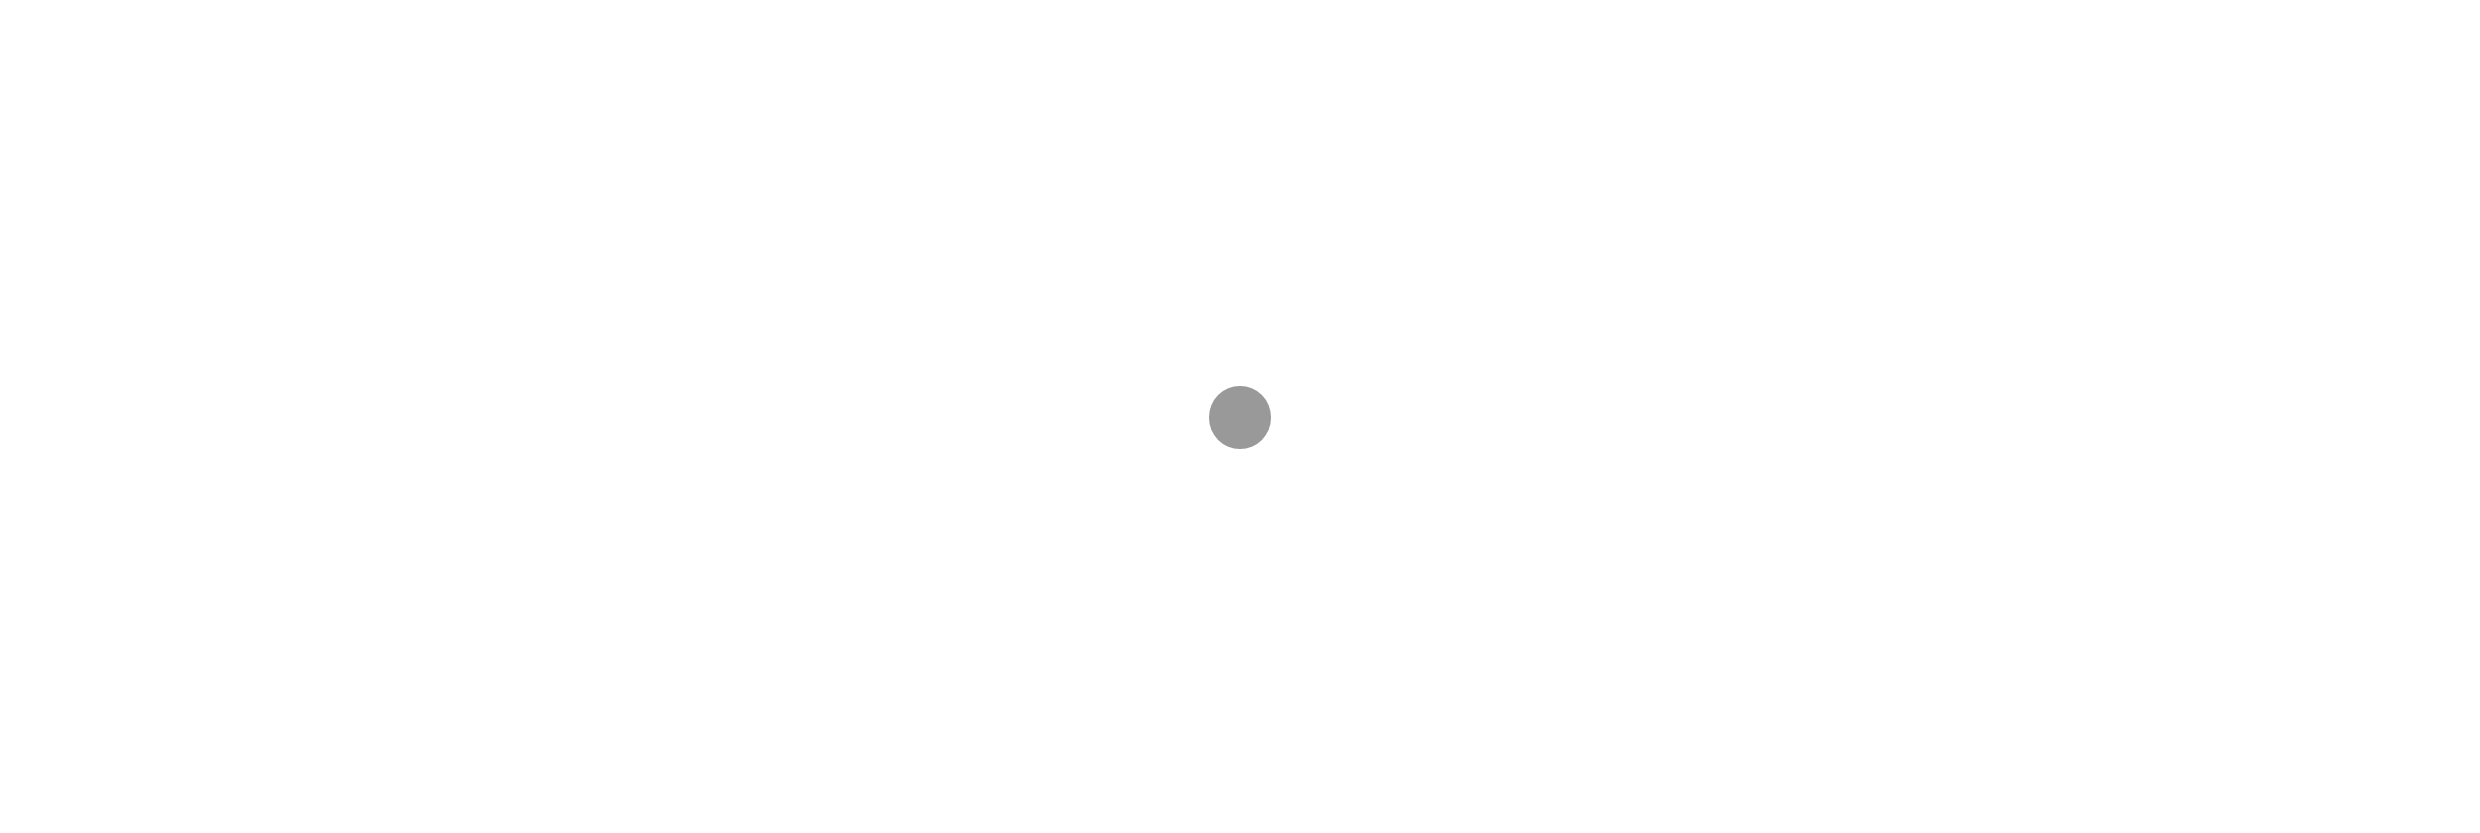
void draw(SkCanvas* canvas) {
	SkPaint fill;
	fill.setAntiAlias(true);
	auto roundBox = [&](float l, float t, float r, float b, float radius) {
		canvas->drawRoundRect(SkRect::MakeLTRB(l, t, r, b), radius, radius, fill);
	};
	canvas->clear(0xFFFFFFFF);
	fill.setColor(0xFF999999);
	roundBox(1209, 386, 1271, 449, 31);
}
